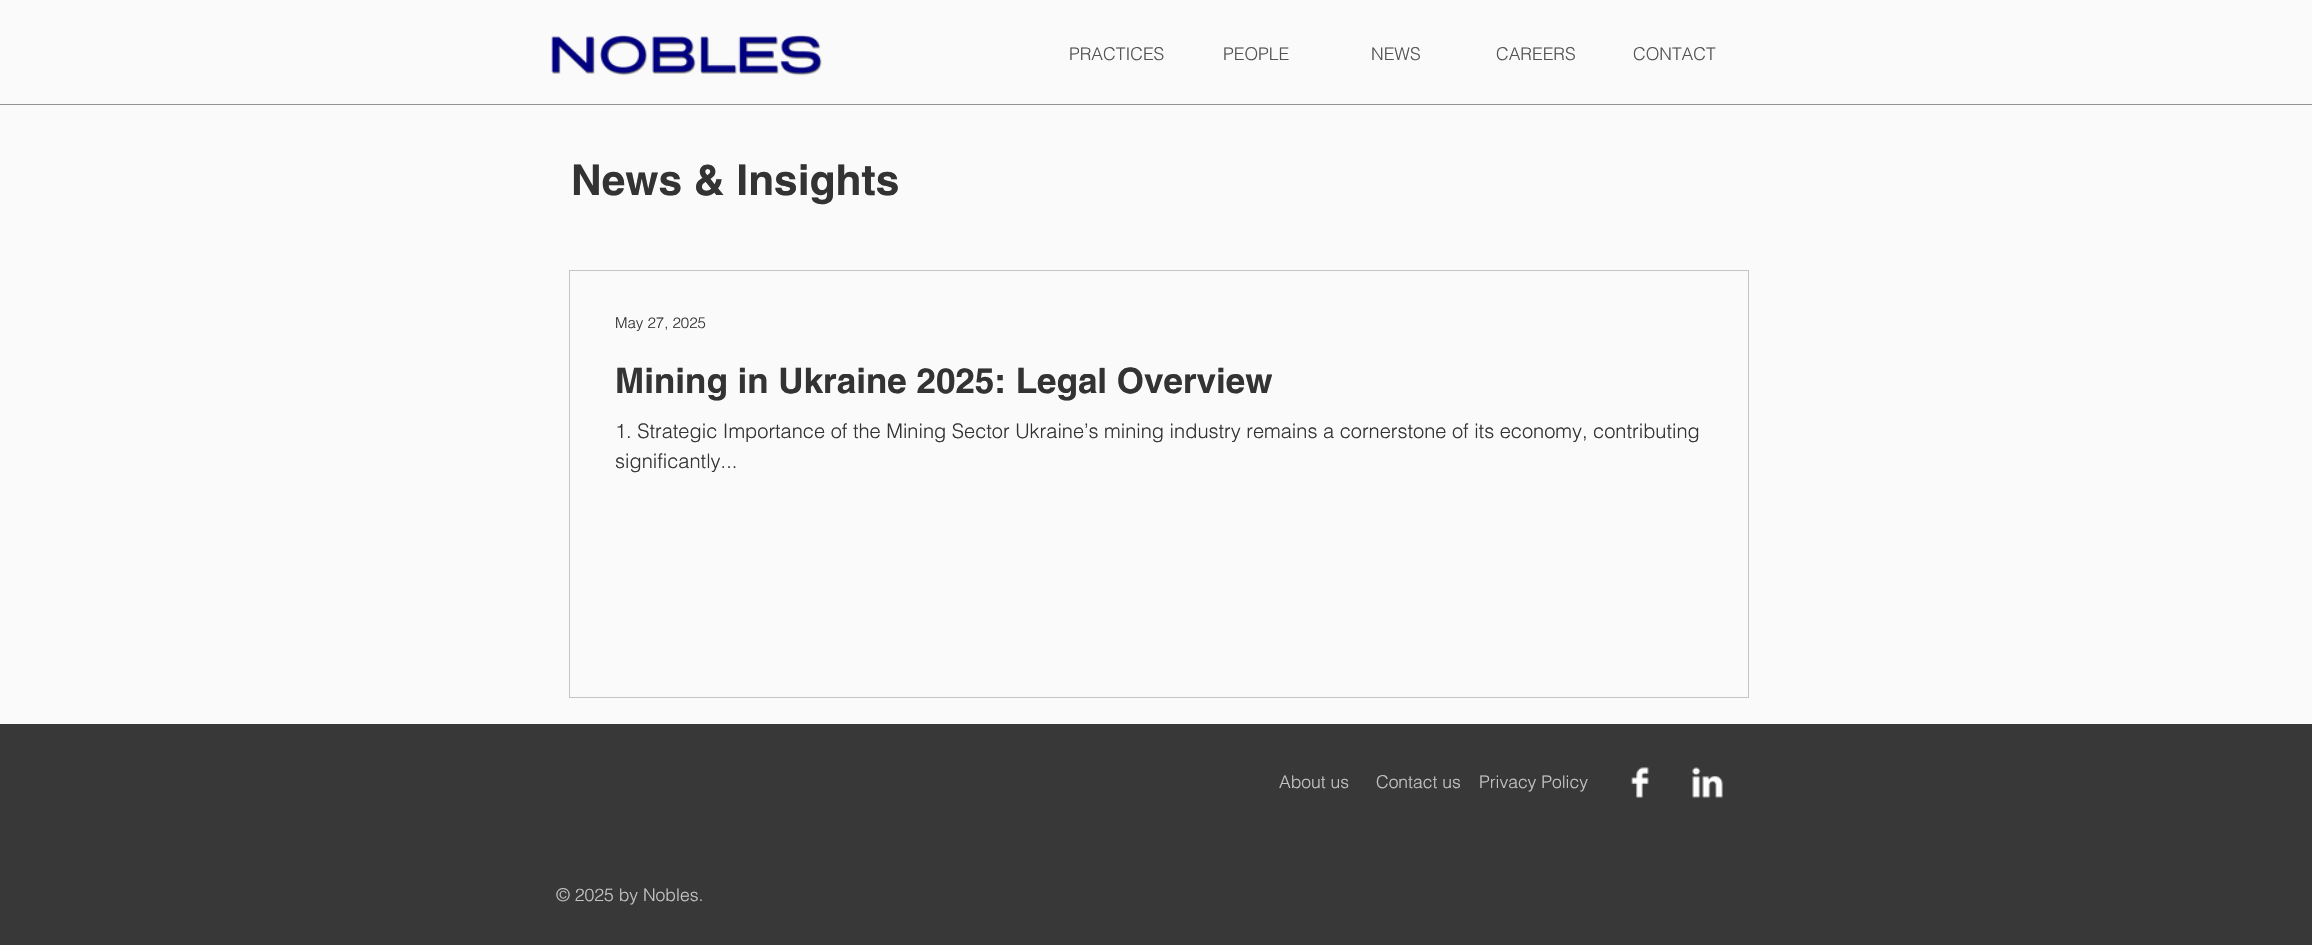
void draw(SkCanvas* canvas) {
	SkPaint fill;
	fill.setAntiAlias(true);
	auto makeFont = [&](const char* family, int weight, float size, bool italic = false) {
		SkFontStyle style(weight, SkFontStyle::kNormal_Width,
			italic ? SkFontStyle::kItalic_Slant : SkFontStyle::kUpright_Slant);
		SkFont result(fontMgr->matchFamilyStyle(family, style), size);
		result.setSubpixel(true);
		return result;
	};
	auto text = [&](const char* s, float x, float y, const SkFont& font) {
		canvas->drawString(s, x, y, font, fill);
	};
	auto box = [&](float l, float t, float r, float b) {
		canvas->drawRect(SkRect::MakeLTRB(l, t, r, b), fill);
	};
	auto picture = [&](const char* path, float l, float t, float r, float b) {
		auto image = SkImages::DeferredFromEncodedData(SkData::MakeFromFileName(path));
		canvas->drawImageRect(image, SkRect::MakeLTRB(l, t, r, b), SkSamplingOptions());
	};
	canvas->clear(0xFFFAFAFA);
	picture("image0.png", 551, 35, 822, 76);
	fill.setColor(0xFF929292);
	box(0, 104, 2312, 105);
	fill.setStyle(SkPaint::kStroke_Style);
	fill.setStrokeWidth(1);
	fill.setColor(0xFFC5C3C3);
	canvas->drawRect(SkRect::MakeLTRB(569.5f, 270.5f, 1748.5f, 697.5f), fill);
	fill.setStyle(SkPaint::kFill_Style);
	fill.setColor(0xFF383838);
	box(0, 724, 2312, 945);
	picture("image1.png", 1631, 767, 1649, 798);
	picture("image2.png", 1692, 767, 1723, 798);
	auto font1 = makeFont("helvetica", 300, 17.5f);
	fill.setColor(0xFF535353);
	text("PRACTICES", 1069, 60, font1);
	text("PEOPLE", 1223, 60, font1);
	text("NEWS", 1371, 60, font1);
	text("CAREERS", 1496, 60, font1);
	text("CONTACT", 1633, 60, font1);
	auto font2 = makeFont("helvetica", 700, 42.5f);
	fill.setColor(0xFF333333);
	text("News & Insights", 571, 195, font2);
	auto font3 = makeFont("helvetica", 300, 15);
	text("May 27, 2025", 615, 328, font3);
	auto font4 = makeFont("helvetica", 700, 35);
	text("Mining in Ukraine 2025: Legal Overview", 615, 393, font4);
	auto font5 = makeFont("helvetica", 300, 20);
	text("1. Strategic Importance of the Mining Sector Ukraine’s mining industry remains a cornerstone of its economy, contributing", 615, 438, font5);
	text("significantly...", 615, 468, font5);
	fill.setColor(0xFFC5C3C3);
	text("About us", 1279, 788, font1);
	text("Contact us", 1376, 788, font1);
	text("Privacy Policy", 1479, 788, font1);
	text("© 2025 by Nobles.", 556, 901, font1);
}
